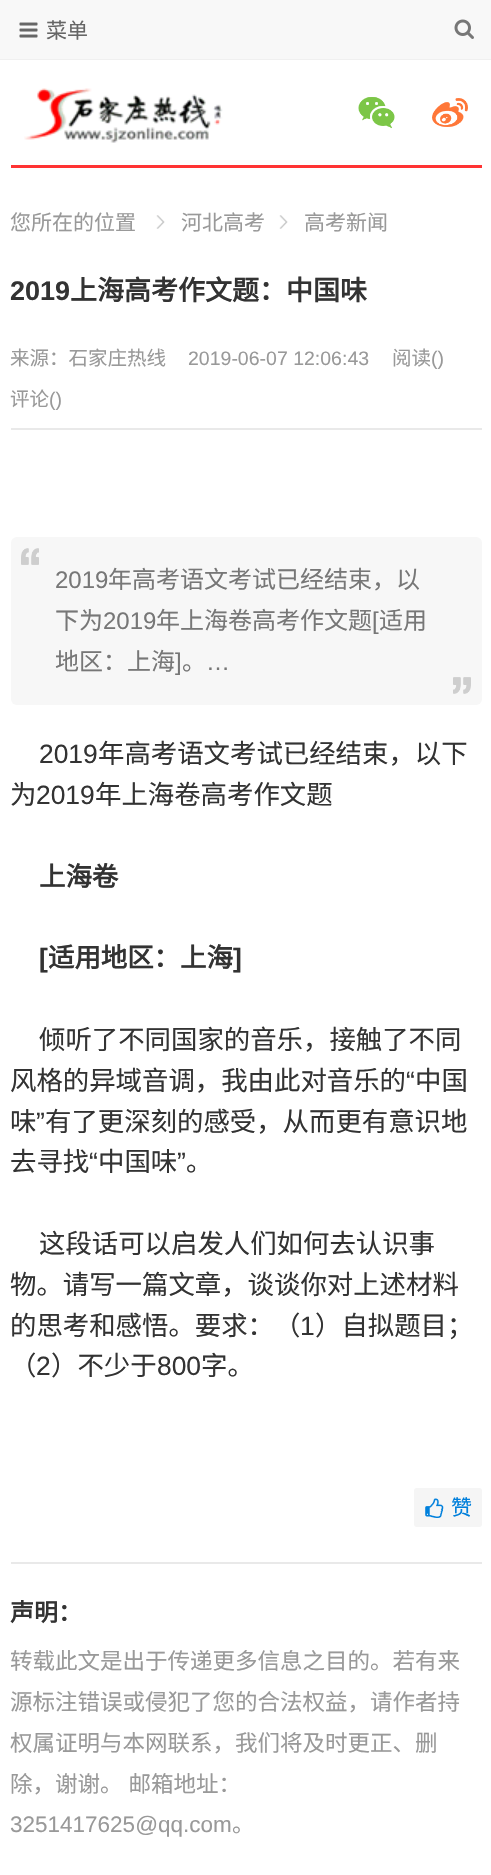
void draw(SkCanvas* canvas) {
	SkPaint fill;
	fill.setAntiAlias(true);
	auto makeFont = [&](const char* family, int weight, float size, bool italic = false) {
		SkFontStyle style(weight, SkFontStyle::kNormal_Width,
			italic ? SkFontStyle::kItalic_Slant : SkFontStyle::kUpright_Slant);
		SkFont result(fontMgr->matchFamilyStyle(family, style), size);
		result.setSubpixel(true);
		return result;
	};
	auto text = [&](const char* s, float x, float y, const SkFont& font) {
		canvas->drawString(s, x, y, font, fill);
	};
	auto spacedText = [&](const char* s, float x, float y, const SkFont& font, const SkPaint& ink, float letter, float word) {
		std::vector<SkGlyphID> glyphs(font.countText(s, strlen(s), SkTextEncoding::kUTF8));
		std::vector<float> xs(glyphs.size());
		font.textToGlyphs(s, strlen(s), SkTextEncoding::kUTF8, glyphs);
		font.getXPos(glyphs, xs, x);
		float extra = 0;
		for (size_t i = 0; i < glyphs.size(); i++) {
			xs[i] += extra;
			extra += letter + word * (glyphs[i] == font.unicharToGlyph(' '));
		}
		canvas->drawTextBlob(SkTextBlob::MakeFromPosHGlyphs(glyphs, xs, y, font), 0, 0, ink);
	};
	auto box = [&](float l, float t, float r, float b) {
		canvas->drawRect(SkRect::MakeLTRB(l, t, r, b), fill);
	};
	auto roundBox = [&](float l, float t, float r, float b, float radius) {
		canvas->drawRoundRect(SkRect::MakeLTRB(l, t, r, b), radius, radius, fill);
	};
	auto picture = [&](const char* path, float l, float t, float r, float b) {
		auto image = SkImages::DeferredFromEncodedData(SkData::MakeFromFileName(path));
		canvas->drawImageRect(image, SkRect::MakeLTRB(l, t, r, b), SkSamplingOptions());
	};
	canvas->clear(0xFFFFFFFF);
	fill.setColor(0xFFF8F8F8);
	box(0, 0, 491, 59);
	fill.setColor(0xFFF0F0F0);
	box(0, 59, 491, 60);
	picture("image0.png", 19, 22, 38, 38);
	picture("image1.png", 24, 88, 223, 143);
	picture("image2.png", 358, 97, 395, 129);
	picture("image3.png", 432, 98, 468, 127);
	picture("image4.png", 454, 19, 474, 39);
	fill.setColor(0xFFFF3333);
	box(11, 165, 482, 168);
	picture("image5.png", 156, 215, 165, 229);
	picture("image6.png", 279, 215, 288, 229);
	fill.setColor(0xFFE9E9E9);
	box(11, 428, 482, 430);
	fill.setColor(0xFFF7F7F7);
	roundBox(11, 537, 482, 705, 6);
	picture("image7.png", 21, 548, 39, 565);
	picture("image8.png", 453, 677, 471, 694);
	fill.setColor(0xFFF5F5F5);
	roundBox(414, 1488, 482, 1527, 3);
	picture("image9.png", 425, 1498, 444, 1518);
	fill.setColor(0xFFE9E9E9);
	box(11, 1562, 482, 1564);
	auto font1 = makeFont("Noto Sans CJK SC", 400, 21);
	fill.setColor(0xFF666666);
	text("菜单", 46, 38, font1);
	fill.setColor(0xFF999999);
	text("您所在的位置", 10, 230, font1);
	text("河北高考", 181, 230, font1);
	text("高考新闻", 304, 230, font1);
	auto font2 = makeFont("Liberation Sans", 700, 27);
	fill.setColor(0xFF333333);
	text("2019", 10, 300, font2);
	auto font3 = makeFont("Noto Sans CJK SC", 700, 27);
	text("上海高考作文题：中国味", 70, 300, font3);
	auto font4 = makeFont("Noto Sans CJK SC", 400, 19.5f);
	fill.setColor(0xFF999999);
	text("来源：石家庄热线", 10, 365, font4);
	auto font5 = makeFont("Liberation Sans", 400, 19.5f);
	text("2019-06-07 12:06:43", 188, 365, font5);
	text("阅读", 392, 365, font4);
	text("()", 431, 365, font5);
	text("评论", 10, 406, font4);
	text("()", 49, 406, font5);
	auto font6 = makeFont("Liberation Sans", 400, 24);
	fill.setColor(0xFF777777);
	text("2019", 55, 588, font6);
	auto font7 = makeFont("Noto Sans CJK SC", 400, 24);
	text("年高考语文考试已经结束，以", 108, 588, font7);
	text("下为", 55, 629, font7);
	text("2019", 103, 629, font6);
	text("年上海卷高考作文题", 156, 629, font7);
	text("[", 372, 629, font6);
	text("适用", 379, 629, font7);
	text("地区：上海", 55, 670, font7);
	text("]", 175, 670, font6);
	text("。", 182, 670, font7);
	text("…", 206, 670, font6);
	auto font8 = makeFont("Liberation Sans", 400, 26.4f);
	fill.setColor(0xFF333333);
	text("2019", 39, 763, font8);
	auto font9 = makeFont("Noto Sans CJK SC", 400, 26.4f);
	text("年高考语文考试已经结束，以下", 98, 763, font9);
	text("为", 10, 804, font9);
	text("2019", 36, 804, font8);
	text("年上海卷高考作文题", 95, 804, font9);
	auto font10 = makeFont("Noto Sans CJK SC", 700, 26.4f);
	text("上海卷", 39, 886, font10);
	auto font11 = makeFont("Liberation Sans", 700, 26.4f);
	text("[", 39, 967, font11);
	text("适用地区：上海", 48, 967, font10);
	text("]", 233, 967, font11);
	text("倾听了不同国家的音乐，接触了不同", 39, 1049, font9);
	text("风格的异域音调，我由此对音乐的", 10, 1090, font9);
	text("“", 406, 1090, font8);
	text("中国", 415, 1090, font9);
	text("味", 10, 1131, font9);
	text("”", 36, 1131, font8);
	text("有了更深刻的感受，从而更有意识地", 45, 1131, font9);
	text("去寻找", 10, 1171, font9);
	text("“", 89, 1171, font8);
	text("中国味", 98, 1171, font9);
	text("”", 177, 1171, font8);
	text("。", 186, 1171, font9);
	text("这段话可以启发人们如何去认识事", 39, 1253, font9);
	text("物。请写一篇文章，谈谈你对上述材料", 10, 1294, font9);
	text("的思考和感悟。要求：（", 10, 1335, font9);
	text("1", 300, 1335, font8);
	text("）自拟题目；", 315, 1335, font9);
	text("（", 10, 1375, font9);
	text("2", 36, 1375, font8);
	text("）不少于", 51, 1375, font9);
	text("800", 157, 1375, font8);
	text("字。", 201, 1375, font9);
	fill.setColor(0xFF007FDB);
	text("赞", 451, 1515, font1);
	auto font12 = makeFont("Noto Sans CJK SC", 700, 24);
	fill.setColor(0xFF333333);
	text("声明：", 10, 1621, font12);
	auto font13 = makeFont("Noto Sans CJK SC", 400, 22.5f);
	fill.setColor(0xFF999999);
	text("转载此文是出于传递更多信息之目的。若有来", 10, 1669, font13);
	text("源标注错误或侵犯了您的合法权益，请作者持", 10, 1710, font13);
	text("权属证明与本网联系，我们将及时更正、删", 10, 1751, font13);
	spacedText("除，谢谢。 邮箱地址：", 10, 1792, font13, fill, 0, 1);
	auto font14 = makeFont("Liberation Sans", 400, 22.5f);
	text("3251417625@qq.com", 10, 1832, font14);
	text("。", 232, 1832, font13);
}
